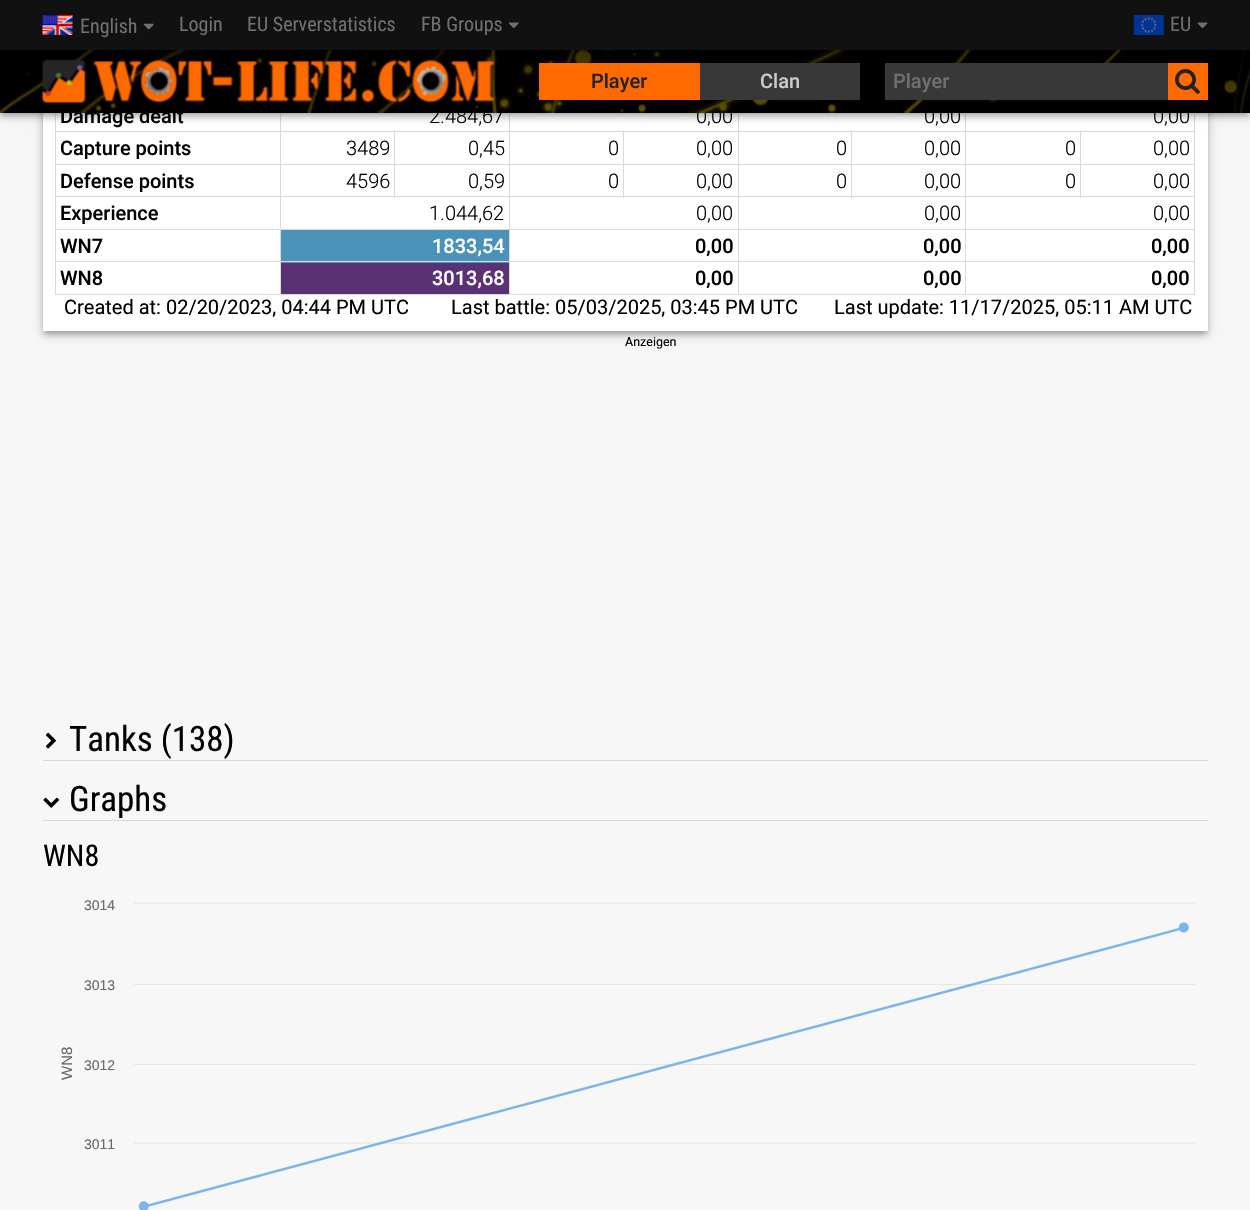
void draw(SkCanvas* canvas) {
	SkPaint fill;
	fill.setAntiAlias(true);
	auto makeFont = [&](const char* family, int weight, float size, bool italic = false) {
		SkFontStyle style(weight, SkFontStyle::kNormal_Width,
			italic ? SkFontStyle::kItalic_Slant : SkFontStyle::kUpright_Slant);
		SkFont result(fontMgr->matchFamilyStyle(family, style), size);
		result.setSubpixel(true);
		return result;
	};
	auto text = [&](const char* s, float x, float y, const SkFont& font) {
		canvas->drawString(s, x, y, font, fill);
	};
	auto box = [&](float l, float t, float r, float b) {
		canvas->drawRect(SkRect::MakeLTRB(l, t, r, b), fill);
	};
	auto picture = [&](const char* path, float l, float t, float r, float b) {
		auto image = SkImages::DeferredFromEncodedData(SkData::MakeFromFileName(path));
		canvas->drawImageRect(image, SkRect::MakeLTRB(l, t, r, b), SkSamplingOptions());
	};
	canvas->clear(0xFFF7F7F7);
	fill.setColor(0x33000000);
	fill.setMaskFilter(SkMaskFilter::MakeBlur(kNormal_SkBlurStyle, 2.5f));
	canvas->drawRect(SkRect::MakeLTRB(44, -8, 1206, 333), fill);
	fill.setMaskFilter(nullptr);
	fill.setColor(0x1F000000);
	fill.setMaskFilter(SkMaskFilter::MakeBlur(kNormal_SkBlurStyle, 6));
	canvas->drawRect(SkRect::MakeLTRB(43, -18, 1208, 333), fill);
	fill.setMaskFilter(nullptr);
	fill.setColor(0x24000000);
	fill.setMaskFilter(SkMaskFilter::MakeBlur(kNormal_SkBlurStyle, 3));
	canvas->drawRect(SkRect::MakeLTRB(43, -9, 1208, 336), fill);
	fill.setMaskFilter(nullptr);
	fill.setColor(0xFFFFFFFF);
	box(43, 113, 1208, 331);
	fill.setColor(0xFFDADADA);
	box(1080, 131, 1195, 132);
	box(1080, 164, 1195, 165);
	box(965, 196, 1195, 197);
	box(1080, 164, 1081, 198);
	box(965, 164, 1081, 165);
	box(1080, 131, 1081, 165);
	box(965, 131, 1081, 132);
	box(965, 229, 1195, 230);
	box(965, 261, 1195, 262);
	box(1194, 261, 1195, 295);
	box(965, 294, 1195, 295);
	box(965, 261, 966, 295);
	box(738, 261, 966, 262);
	box(965, 229, 966, 263);
	box(738, 229, 966, 230);
	box(965, 196, 966, 230);
	box(738, 196, 966, 197);
	box(965, 164, 966, 198);
	box(851, 164, 966, 165);
	box(965, 131, 966, 165);
	box(851, 131, 966, 132);
	box(851, 164, 852, 198);
	box(738, 164, 853, 165);
	box(851, 131, 852, 165);
	box(738, 131, 853, 132);
	box(738, 294, 966, 295);
	box(738, 261, 739, 295);
	box(509, 261, 739, 262);
	box(738, 229, 739, 263);
	box(509, 229, 739, 230);
	box(738, 196, 739, 230);
	box(509, 196, 739, 197);
	box(738, 164, 739, 198);
	box(623, 164, 739, 165);
	box(738, 131, 739, 165);
	box(623, 131, 739, 132);
	box(623, 164, 624, 198);
	box(509, 164, 624, 165);
	box(623, 131, 624, 165);
	box(509, 131, 624, 132);
	fill.setColor(0xFF4A92B7);
	box(281, 230, 509, 263);
	fill.setColor(0xFFDADADA);
	box(509, 294, 739, 295);
	box(509, 261, 510, 295);
	box(280, 261, 510, 262);
	box(509, 229, 510, 263);
	box(280, 229, 510, 230);
	box(509, 196, 510, 230);
	box(280, 196, 510, 197);
	box(509, 164, 510, 198);
	box(394, 164, 510, 165);
	box(509, 131, 510, 165);
	box(394, 131, 510, 132);
	box(394, 164, 395, 198);
	box(280, 164, 395, 165);
	box(394, 131, 395, 165);
	box(280, 131, 395, 132);
	box(280, 294, 510, 295);
	box(280, 261, 281, 295);
	box(55, 261, 281, 262);
	box(280, 229, 281, 263);
	box(55, 229, 281, 230);
	box(280, 196, 281, 230);
	box(55, 196, 281, 197);
	box(280, 164, 281, 198);
	box(55, 164, 281, 165);
	box(280, 131, 281, 165);
	box(55, 131, 281, 132);
	box(280, 113, 281, 133);
	box(509, 113, 510, 133);
	box(738, 113, 739, 133);
	box(965, 113, 966, 133);
	box(55, 294, 281, 295);
	box(55, 261, 56, 295);
	box(55, 229, 56, 263);
	box(55, 196, 56, 230);
	box(55, 164, 56, 198);
	box(55, 113, 56, 165);
	box(1194, 229, 1195, 263);
	box(1194, 196, 1195, 230);
	box(1194, 164, 1195, 198);
	box(1194, 113, 1195, 165);
	fill.setColor(0x33000000);
	fill.setMaskFilter(SkMaskFilter::MakeBlur(kNormal_SkBlurStyle, 2.5f));
	canvas->drawRect(SkRect::MakeLTRB(1, 54, 1249, 114), fill);
	fill.setMaskFilter(nullptr);
	fill.setColor(0x1F000000);
	fill.setMaskFilter(SkMaskFilter::MakeBlur(kNormal_SkBlurStyle, 6));
	canvas->drawRect(SkRect::MakeLTRB(0, 51, 1250, 114), fill);
	fill.setMaskFilter(nullptr);
	fill.setColor(0x24000000);
	fill.setMaskFilter(SkMaskFilter::MakeBlur(kNormal_SkBlurStyle, 3));
	canvas->drawRect(SkRect::MakeLTRB(0, 55, 1250, 118), fill);
	fill.setMaskFilter(nullptr);
	fill.setColor(0xFF111111);
	box(0, 0, 1250, 50);
	picture("image0.png", 42, 15, 73, 35);
	picture("image1.png", 143, 23, 154, 30);
	picture("image2.png", 1133, 15, 1164, 35);
	picture("image3.png", 1197, 22, 1208, 28);
	picture("image4.png", 508, 22, 519, 28);
	fill.setColor(0xFF5A3175);
	box(281, 263, 509, 294);
	fill.setColor(0xFFDADADA);
	box(43, 760, 1208, 761);
	picture("image8.png", 45, 732, 56, 749);
	box(43, 820, 1208, 821);
	picture("image9.png", 43, 797, 60, 808);
	picture("image10.png", 134, 902, 1195, 1210);
	auto font1 = makeFont("Roboto Condensed", 400, 20);
	fill.setColor(0xFF707070);
	text("English", 80, 33, font1);
	text("EU", 1170, 31, font1);
	text("Login", 179, 31, font1);
	text("EU Serverstatistics", 247, 31, font1);
	text("FB Groups", 421, 31, font1);
	auto font2 = makeFont("Roboto", 500, 20);
	fill.setColor(0xFF000000);
	text("Damage dealt", 60, 123, font2);
	auto font3 = makeFont("Roboto", 300, 20);
	text("2.484,67", 429, 123, font3);
	text("0,00", 696, 123, font3);
	text("0,00", 924, 123, font3);
	text("0,00", 1153, 123, font3);
	picture("image5.png", 0, 50, 1250, 113);
	fill.setColor(0xFF383838);
	box(700, 63, 860, 100);
	fill.setColor(0xFFCCCCCC);
	text("Clan", 760, 88, font2);
	fill.setColor(0xFFFF6A00);
	box(539, 63, 700, 100);
	fill.setColor(0xFF222222);
	text("Player", 591, 88, font2);
	fill.setColor(0xFFFF6A00);
	box(1168, 63, 1208, 100);
	picture("image7.png", 1175, 69, 1200, 94);
	fill.setColor(0xFF383838);
	box(885, 63, 1168, 100);
	fill.setColor(0xFF707070);
	text("Player", 893, 88, font2);
	picture("image6.png", 42, 59, 495, 104);
	fill.setColor(0xFF000000);
	text("Capture points", 60, 155, font2);
	text("3489", 346, 155, font3);
	text("0,45", 468, 155, font3);
	text("0", 608, 155, font3);
	text("0,00", 696, 155, font3);
	text("0", 836, 155, font3);
	text("0,00", 924, 155, font3);
	text("0", 1065, 155, font3);
	text("0,00", 1153, 155, font3);
	text("Defense points", 60, 188, font2);
	text("4596", 346, 188, font3);
	text("0,59", 468, 188, font3);
	text("0", 608, 188, font3);
	text("0,00", 696, 188, font3);
	text("0", 836, 188, font3);
	text("0,00", 924, 188, font3);
	text("0", 1065, 188, font3);
	text("0,00", 1153, 188, font3);
	text("Experience", 60, 220, font2);
	text("1.044,62", 429, 220, font3);
	text("0,00", 696, 220, font3);
	text("0,00", 924, 220, font3);
	text("0,00", 1153, 220, font3);
	text("WN7", 60, 253, font2);
	fill.setColor(0xFFFFFFFF);
	text("1833,54", 432, 253, font2);
	fill.setColor(0xFF000000);
	text("0,00", 695, 253, font2);
	text("0,00", 923, 253, font2);
	text("0,00", 1151, 253, font2);
	text("WN8", 60, 285, font2);
	fill.setColor(0xFFFFFFFF);
	text("3013,68", 432, 285, font2);
	fill.setColor(0xFF000000);
	text("0,00", 695, 285, font2);
	text("0,00", 923, 285, font2);
	text("0,00", 1151, 285, font2);
	auto font4 = makeFont("Roboto", 400, 20);
	text("Created at: 02/20/2023, 04:44 PM UTC", 64, 314, font4);
	text("Last battle: 05/03/2025, 03:45 PM UTC", 451, 314, font4);
	text("Last update: 11/17/2025, 05:11 AM UTC", 834, 314, font4);
	auto font5 = makeFont("Roboto", 400, 12.5f);
	text("Anzeigen", 625, 346, font5);
	auto font6 = makeFont("Roboto Condensed", 400, 35);
	text("Tanks (138)", 69, 751, font6);
	text("Graphs", 69, 811, font6);
	auto font7 = makeFont("Roboto Condensed", 400, 30);
	text("WN8", 43, 866, font7);
	auto font8 = makeFont("Liberation Sans", 400, 14);
	fill.setColor(0xFF666666);
	text("3014", 84, 910, font8);
	text("3013", 84, 990, font8);
	auto font9 = makeFont("Liberation Sans", 400, 15);
	canvas->save();
	canvas->rotate(-90, 72, 1080);
	text("WN8", 72, 1080, font9);
	canvas->restore();
	text("3012", 84, 1070, font8);
	text("3011", 84, 1149, font8);
}
